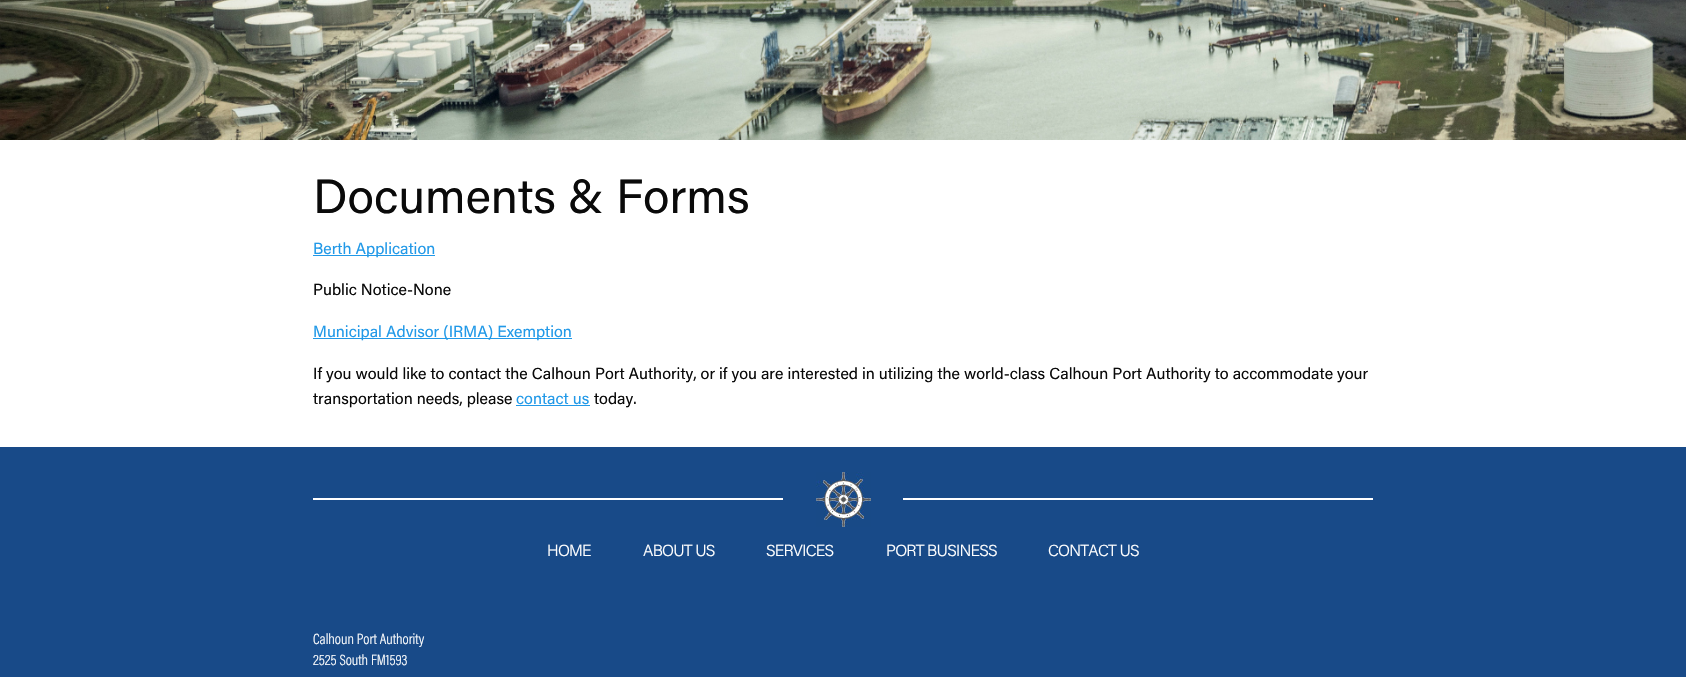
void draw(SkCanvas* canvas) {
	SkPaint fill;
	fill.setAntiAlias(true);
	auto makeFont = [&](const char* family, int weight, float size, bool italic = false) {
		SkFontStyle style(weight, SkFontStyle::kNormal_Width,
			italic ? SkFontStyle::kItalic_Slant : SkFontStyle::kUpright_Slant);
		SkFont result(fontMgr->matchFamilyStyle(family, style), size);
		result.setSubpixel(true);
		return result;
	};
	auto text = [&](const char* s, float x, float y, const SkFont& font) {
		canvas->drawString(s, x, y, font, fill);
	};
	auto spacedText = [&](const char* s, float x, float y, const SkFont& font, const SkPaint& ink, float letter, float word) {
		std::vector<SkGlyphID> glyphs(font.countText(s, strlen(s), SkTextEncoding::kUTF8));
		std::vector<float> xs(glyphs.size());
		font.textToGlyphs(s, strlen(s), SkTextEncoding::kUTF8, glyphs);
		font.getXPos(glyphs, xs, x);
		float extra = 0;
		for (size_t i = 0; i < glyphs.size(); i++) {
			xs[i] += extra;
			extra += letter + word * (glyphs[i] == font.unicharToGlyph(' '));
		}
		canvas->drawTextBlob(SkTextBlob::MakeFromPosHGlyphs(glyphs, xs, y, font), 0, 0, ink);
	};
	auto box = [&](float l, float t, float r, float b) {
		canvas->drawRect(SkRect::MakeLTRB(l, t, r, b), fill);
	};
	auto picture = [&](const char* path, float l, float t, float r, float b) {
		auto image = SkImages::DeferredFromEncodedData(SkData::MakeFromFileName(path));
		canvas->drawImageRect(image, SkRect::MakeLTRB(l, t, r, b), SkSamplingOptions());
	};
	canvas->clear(0xFFFFFFFF);
	picture("image0.png", 0, 0, 1686, 140);
	fill.setColor(0xFF2199E8);
	box(313, 255, 435, 256);
	box(313, 338, 572, 339);
	box(516, 405, 590, 406);
	fill.setColor(0xFF184A88);
	box(0, 447, 1686, 677);
	fill.setColor(0xFFFFFFFF);
	box(313, 498, 1373, 500);
	fill.setColor(0xFF184A88);
	box(783, 498, 903, 500);
	picture("image1.png", 816, 472, 871, 527);
	auto font1 = makeFont("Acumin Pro", 400, 48);
	fill.setColor(0xFF0A0A0A);
	text("Documents & Forms", 313, 213, font1);
	auto font2 = makeFont("Acumin Pro", 400, 16);
	fill.setColor(0xFF2199E8);
	text("Berth Application", 313, 254, font2);
	fill.setColor(0xFF0A0A0A);
	text("Public Notice-None", 313, 295, font2);
	fill.setColor(0xFF2199E8);
	text("Municipal Advisor (IRMA) Exemption", 313, 337, font2);
	fill.setColor(0xFF0A0A0A);
	text("If you would like to contact the Calhoun Port Authority, or if you are interested in utilizing the world-class Calhoun Port Authority to accommodate your", 313, 379, font2);
	text("transportation needs, please", 313, 404, font2);
	fill.setColor(0xFF2199E8);
	text("contact us", 516, 404, font2);
	fill.setColor(0xFF0A0A0A);
	text("today.", 594, 404, font2);
	auto font3 = makeFont("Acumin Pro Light", 300, 16);
	fill.setColor(0xFFFFFFFF);
	spacedText("HOME", 547, 556, font3, fill, -0.75f, 0);
	spacedText("ABOUT US", 643, 556, font3, fill, -0.75f, 0);
	spacedText("SERVICES", 766, 556, font3, fill, -0.75f, 0);
	spacedText("PORT BUSINESS", 886, 556, font3, fill, -0.75f, 0);
	spacedText("CONTACT US", 1048, 556, font3, fill, -0.75f, 0);
	auto font4 = makeFont("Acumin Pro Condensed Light", 300, 15);
	text("Calhoun Port Authority", 313, 644, font4);
	text("2525 South FM1593", 313, 665, font4);
}
